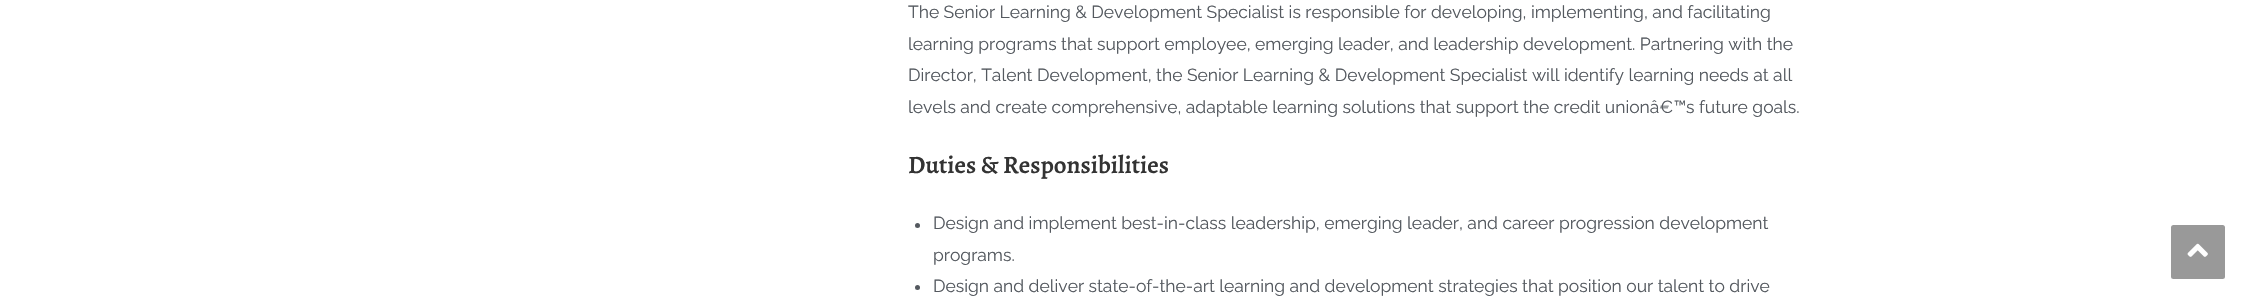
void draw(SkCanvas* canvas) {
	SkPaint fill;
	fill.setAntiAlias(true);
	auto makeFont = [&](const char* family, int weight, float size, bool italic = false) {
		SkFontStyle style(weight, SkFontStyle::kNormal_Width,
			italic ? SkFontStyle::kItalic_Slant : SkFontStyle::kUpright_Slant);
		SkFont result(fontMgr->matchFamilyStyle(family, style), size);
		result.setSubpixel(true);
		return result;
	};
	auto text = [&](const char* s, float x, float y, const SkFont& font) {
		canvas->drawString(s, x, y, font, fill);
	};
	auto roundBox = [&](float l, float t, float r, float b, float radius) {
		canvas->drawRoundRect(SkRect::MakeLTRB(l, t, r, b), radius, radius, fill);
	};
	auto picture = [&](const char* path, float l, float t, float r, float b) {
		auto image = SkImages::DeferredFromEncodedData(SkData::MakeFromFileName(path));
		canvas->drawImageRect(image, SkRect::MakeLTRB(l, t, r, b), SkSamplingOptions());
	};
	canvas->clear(0xFFFFFFFF);
	fill.setColor(0xFF54595F);
	canvas->drawCircle(917.5f, 225.5f, 2.5f, fill);
	canvas->drawCircle(917.5f, 287.5f, 2.5f, fill);
	fill.setColor(0xFF999999);
	roundBox(2171, 225, 2225, 279, 2.5f);
	picture("image0.png", 2187, 243, 2208, 257);
	auto font1 = makeFont("Raleway", 400, 17.5f);
	fill.setColor(0xFF54595F);
	text("The Senior Learning & Development Specialist is responsible for developing, implementing, and facilitating", 908, 18, font1);
	text("learning programs that support employee, emerging leader, and leadership development. Partnering with the", 908, 50, font1);
	text("Director, Talent Development, the Senior Learning & Development Specialist will identify learning needs at all", 908, 81, font1);
	text("levels and create comprehensive, adaptable learning solutions that support the credit unionâ€™s future goals.", 908, 113, font1);
	auto font2 = makeFont("Alegreya", 600, 25);
	fill.setColor(0xFF333333);
	text("Duties & Responsibilities", 908, 173, font2);
	fill.setColor(0xFF54595F);
	text("Design and implement best-in-class leadership, emerging leader, and career progression development", 933, 229, font1);
	text("programs.", 933, 261, font1);
	text("Design and deliver state-of-the-art learning and development strategies that position our talent to drive", 933, 292, font1);
}
